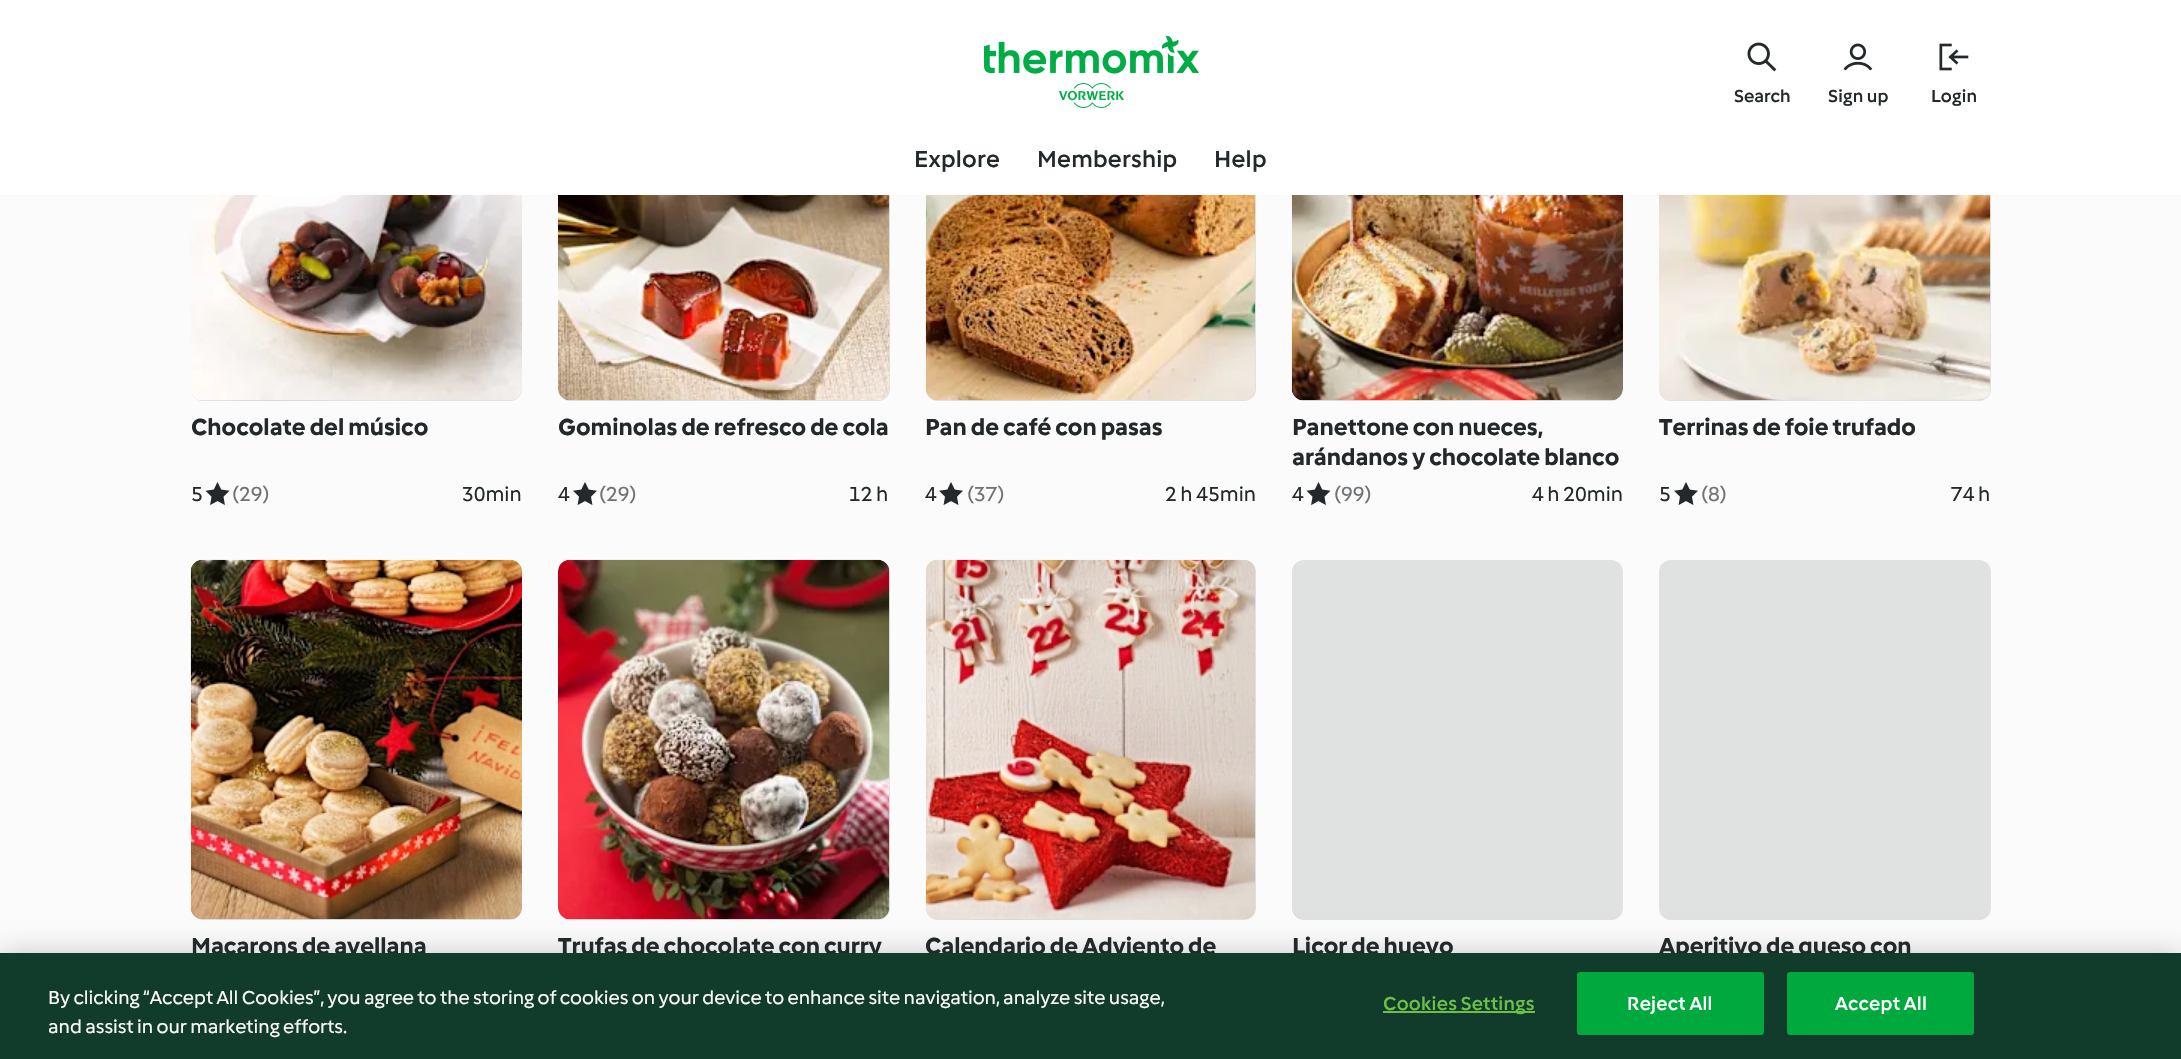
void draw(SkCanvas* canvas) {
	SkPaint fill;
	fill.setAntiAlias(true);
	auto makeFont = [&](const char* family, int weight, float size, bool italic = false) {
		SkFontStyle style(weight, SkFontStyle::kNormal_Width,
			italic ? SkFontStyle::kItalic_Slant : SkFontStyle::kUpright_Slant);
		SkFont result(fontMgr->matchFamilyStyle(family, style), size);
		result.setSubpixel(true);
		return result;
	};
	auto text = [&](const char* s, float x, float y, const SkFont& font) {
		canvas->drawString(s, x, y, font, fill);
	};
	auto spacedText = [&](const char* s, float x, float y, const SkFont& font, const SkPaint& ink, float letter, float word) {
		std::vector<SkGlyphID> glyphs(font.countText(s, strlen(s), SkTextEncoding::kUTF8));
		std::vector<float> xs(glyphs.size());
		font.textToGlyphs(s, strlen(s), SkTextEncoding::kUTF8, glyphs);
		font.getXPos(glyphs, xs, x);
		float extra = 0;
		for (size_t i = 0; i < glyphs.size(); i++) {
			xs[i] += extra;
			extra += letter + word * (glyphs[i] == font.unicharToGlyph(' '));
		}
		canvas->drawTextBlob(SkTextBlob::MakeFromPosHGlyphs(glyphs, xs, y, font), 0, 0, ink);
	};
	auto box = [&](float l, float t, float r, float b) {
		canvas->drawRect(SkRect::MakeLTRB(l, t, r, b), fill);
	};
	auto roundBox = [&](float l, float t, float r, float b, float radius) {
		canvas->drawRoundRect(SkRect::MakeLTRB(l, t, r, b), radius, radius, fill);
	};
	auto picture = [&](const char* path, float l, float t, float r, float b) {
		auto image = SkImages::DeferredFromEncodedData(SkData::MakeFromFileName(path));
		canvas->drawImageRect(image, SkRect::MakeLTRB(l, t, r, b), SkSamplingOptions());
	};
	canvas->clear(0xFFFBFBFB);
	{
		const SkColor colors[] = {0xFFDFE2E0, 0xFFD6DBD8, 0xFFE4E7E5, 0xFFDFE2E0};
		const float stops[] = {0.19f, 0.35f, 0.66f, 0.79f};
		const SkPoint ends[] = {{169, 194}, {544, 247}};
		fill.setShader(SkGradientShader::MakeLinear(ends, colors, stops, 4, SkTileMode::kClamp));
		fill.setAlpha(255);
	}
	roundBox(191, 41, 522, 401, 12);
	{
		const SkColor colors[] = {0xFFDFE2E0, 0xFFD6DBD8, 0xFFE4E7E5, 0xFFDFE2E0};
		const float stops[] = {0.19f, 0.35f, 0.66f, 0.79f};
		const SkPoint ends[] = {{536, 194}, {911, 247}};
		fill.setShader(SkGradientShader::MakeLinear(ends, colors, stops, 4, SkTileMode::kClamp));
		fill.setAlpha(255);
	}
	roundBox(558, 41, 890, 401, 12);
	{
		const SkColor colors[] = {0xFFDFE2E0, 0xFFD6DBD8, 0xFFE4E7E5, 0xFFDFE2E0};
		const float stops[] = {0.19f, 0.35f, 0.66f, 0.79f};
		const SkPoint ends[] = {{904, 194}, {1277, 247}};
		fill.setShader(SkGradientShader::MakeLinear(ends, colors, stops, 4, SkTileMode::kClamp));
		fill.setAlpha(255);
	}
	roundBox(926, 41, 1256, 401, 12);
	{
		const SkColor colors[] = {0xFFDFE2E0, 0xFFD6DBD8, 0xFFE4E7E5, 0xFFDFE2E0};
		const float stops[] = {0.19f, 0.35f, 0.66f, 0.79f};
		const SkPoint ends[] = {{1270, 194}, {1645, 247}};
		fill.setShader(SkGradientShader::MakeLinear(ends, colors, stops, 4, SkTileMode::kClamp));
		fill.setAlpha(255);
	}
	roundBox(1292, 41, 1623, 401, 12);
	{
		const SkColor colors[] = {0xFFDFE2E0, 0xFFD6DBD8, 0xFFE4E7E5, 0xFFDFE2E0};
		const float stops[] = {0.19f, 0.35f, 0.66f, 0.79f};
		const SkPoint ends[] = {{1637, 194}, {2012, 247}};
		fill.setShader(SkGradientShader::MakeLinear(ends, colors, stops, 4, SkTileMode::kClamp));
		fill.setAlpha(255);
	}
	roundBox(1659, 41, 1991, 401, 12);
	fill.setShader(nullptr);
	fill.setColor(0xFFFFFFFF);
	box(0, 0, 2181, 195);
	picture("image0.png", 984, 36, 1199, 108);
	picture("image1.png", 1843, 43, 1873, 71);
	picture("image2.png", 1939, 43, 1969, 71);
	picture("image3.png", 1747, 42, 1777, 72);
	picture("image4.png", 190, 195, 522, 400);
	picture("image5.png", 205, 482, 230, 505);
	picture("image6.png", 558, 195, 890, 401);
	picture("image7.png", 573, 482, 597, 505);
	picture("image8.png", 925, 195, 1256, 401);
	picture("image7.png", 939, 482, 963, 505);
	picture("image9.png", 1291, 195, 1623, 401);
	picture("image5.png", 1306, 482, 1331, 505);
	picture("image10.png", 1659, 195, 1991, 401);
	picture("image7.png", 1674, 482, 1698, 505);
	{
		const SkColor colors[] = {0xFFDFE2E0, 0xFFD6DBD8, 0xFFE4E7E5, 0xFFDFE2E0};
		const float stops[] = {0.19f, 0.35f, 0.66f, 0.79f};
		const SkPoint ends[] = {{169, 713}, {544, 766}};
		fill.setShader(SkGradientShader::MakeLinear(ends, colors, stops, 4, SkTileMode::kClamp));
		fill.setAlpha(255);
	}
	roundBox(191, 560, 522, 920, 12);
	picture("image11.png", 190, 559, 522, 920);
	{
		const SkColor colors[] = {0xFFDFE2E0, 0xFFD6DBD8, 0xFFE4E7E5, 0xFFDFE2E0};
		const float stops[] = {0.19f, 0.35f, 0.66f, 0.79f};
		const SkPoint ends[] = {{536, 713}, {911, 766}};
		fill.setShader(SkGradientShader::MakeLinear(ends, colors, stops, 4, SkTileMode::kClamp));
		fill.setAlpha(255);
	}
	roundBox(558, 560, 890, 920, 12);
	picture("image12.png", 558, 559, 890, 920);
	{
		const SkColor colors[] = {0xFFDFE2E0, 0xFFD6DBD8, 0xFFE4E7E5, 0xFFDFE2E0};
		const float stops[] = {0.19f, 0.35f, 0.66f, 0.79f};
		const SkPoint ends[] = {{904, 713}, {1277, 766}};
		fill.setShader(SkGradientShader::MakeLinear(ends, colors, stops, 4, SkTileMode::kClamp));
		fill.setAlpha(255);
	}
	roundBox(926, 560, 1256, 920, 12);
	picture("image13.png", 925, 559, 1256, 919);
	fill.setShader(nullptr);
	fill.setColor(0xFFDFE2E0);
	roundBox(1292, 560, 1623, 920, 12);
	roundBox(1659, 560, 1991, 920, 12);
	fill.setColor(0x33000000);
	fill.setMaskFilter(SkMaskFilter::MakeBlur(kNormal_SkBlurStyle, 13.5f));
	canvas->drawRect(SkRect::MakeLTRB(0, 953, 2181, 1059), fill);
	fill.setMaskFilter(nullptr);
	auto font1 = makeFont("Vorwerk", 500, 18);
	fill.setColor(0xFF23282A);
	spacedText("Sign up", 1828, 102, font1, fill, 0.25f, 0);
	spacedText("Login", 1931, 102, font1, fill, 0.25f, 0);
	auto font2 = makeFont("Vorwerk", 500, 24);
	spacedText("Explore", 914, 167, font2, fill, 0.25f, 0);
	spacedText("Membership", 1037, 167, font2, fill, 0.25f, 0);
	spacedText("Help", 1214, 167, font2, fill, 0.25f, 0);
	text("Search", 1734, 102, font1);
	auto font3 = makeFont("Vorwerk", 700, 24);
	text("Chocolate del músico", 191, 435, font3);
	auto font4 = makeFont("Vorwerk", 400, 21);
	text("5", 191, 501, font4);
	fill.setColor(0xFF707375);
	text("(29)", 232, 501, font4);
	fill.setColor(0xFF23282A);
	text("30min", 462, 501, font4);
	text("Gominolas de refresco de cola", 558, 435, font3);
	text("4", 558, 501, font4);
	fill.setColor(0xFF707375);
	text("(29)", 599, 501, font4);
	fill.setColor(0xFF23282A);
	text("12 h", 849, 501, font4);
	text("Pan de café con pasas", 925, 435, font3);
	text("4", 925, 501, font4);
	fill.setColor(0xFF707375);
	text("(37)", 967, 501, font4);
	fill.setColor(0xFF23282A);
	text("2 h 45min", 1165, 501, font4);
	text("Panettone con nueces,", 1292, 435, font3);
	text("arándanos y chocolate blanco", 1292, 465, font3);
	text("4", 1292, 501, font4);
	fill.setColor(0xFF707375);
	text("(99)", 1334, 501, font4);
	fill.setColor(0xFF23282A);
	text("4 h 20min", 1532, 501, font4);
	text("Terrinas de foie trufado", 1659, 435, font3);
	text("5", 1659, 501, font4);
	fill.setColor(0xFF707375);
	text("(8)", 1701, 501, font4);
	fill.setColor(0xFF23282A);
	text("74 h", 1951, 501, font4);
	text("Macarons de avellana", 191, 954, font3);
	canvas->save();
	canvas->clipRect(SkRect::MakeLTRB(558, 932, 890, 992));
	text("Trufas de chocolate con curry", 558, 954, font3);
	canvas->restore();
	text("Calendario de Adviento de", 925, 954, font3);
	text("Licor de huevo", 1292, 954, font3);
	text("Aperitivo de queso con", 1659, 954, font3);
	fill.setColor(0xFF113C2B);
	box(0, 953, 2181, 1059);
	auto font5 = makeFont("Vorwerk", 400, 19.5f);
	fill.setColor(0xFFFFFFFF);
	text("By clicking “Accept All Cookies”, you agree to the storing of cookies on your device to enhance site navigation, analyze site usage,", 48, 1004, font5);
	text("and assist in our marketing efforts.", 48, 1033, font5);
	fill.setColor(0xFF6CC04A);
	box(1383, 1011, 1535, 1013);
	auto font6 = makeFont("Vorwerk", 500, 19.5f);
	spacedText("Cookies Settings", 1383, 1010, font6, fill, 0.25f, 0);
	fill.setColor(0xFF00A93D);
	canvas->drawRoundRect(SkRect::MakeLTRB(1578, 973, 1763, 1034), 2, 2, fill);
	fill.setStyle(SkPaint::kStroke_Style);
	fill.setStrokeWidth(2);
	canvas->drawRoundRect(SkRect::MakeLTRB(1578, 973, 1763, 1034), 2, 2, fill);
	fill.setStyle(SkPaint::kFill_Style);
	fill.setColor(0xFFFFFFFF);
	spacedText("Reject All", 1627, 1010, font6, fill, 0.25f, 0);
	fill.setColor(0xFF00A93D);
	canvas->drawRoundRect(SkRect::MakeLTRB(1788, 973, 1973, 1034), 2, 2, fill);
	fill.setStyle(SkPaint::kStroke_Style);
	canvas->drawRoundRect(SkRect::MakeLTRB(1788, 973, 1973, 1034), 2, 2, fill);
	fill.setStyle(SkPaint::kFill_Style);
	fill.setColor(0xFFFFFFFF);
	spacedText("Accept All", 1835, 1010, font6, fill, 0.25f, 0);
}
